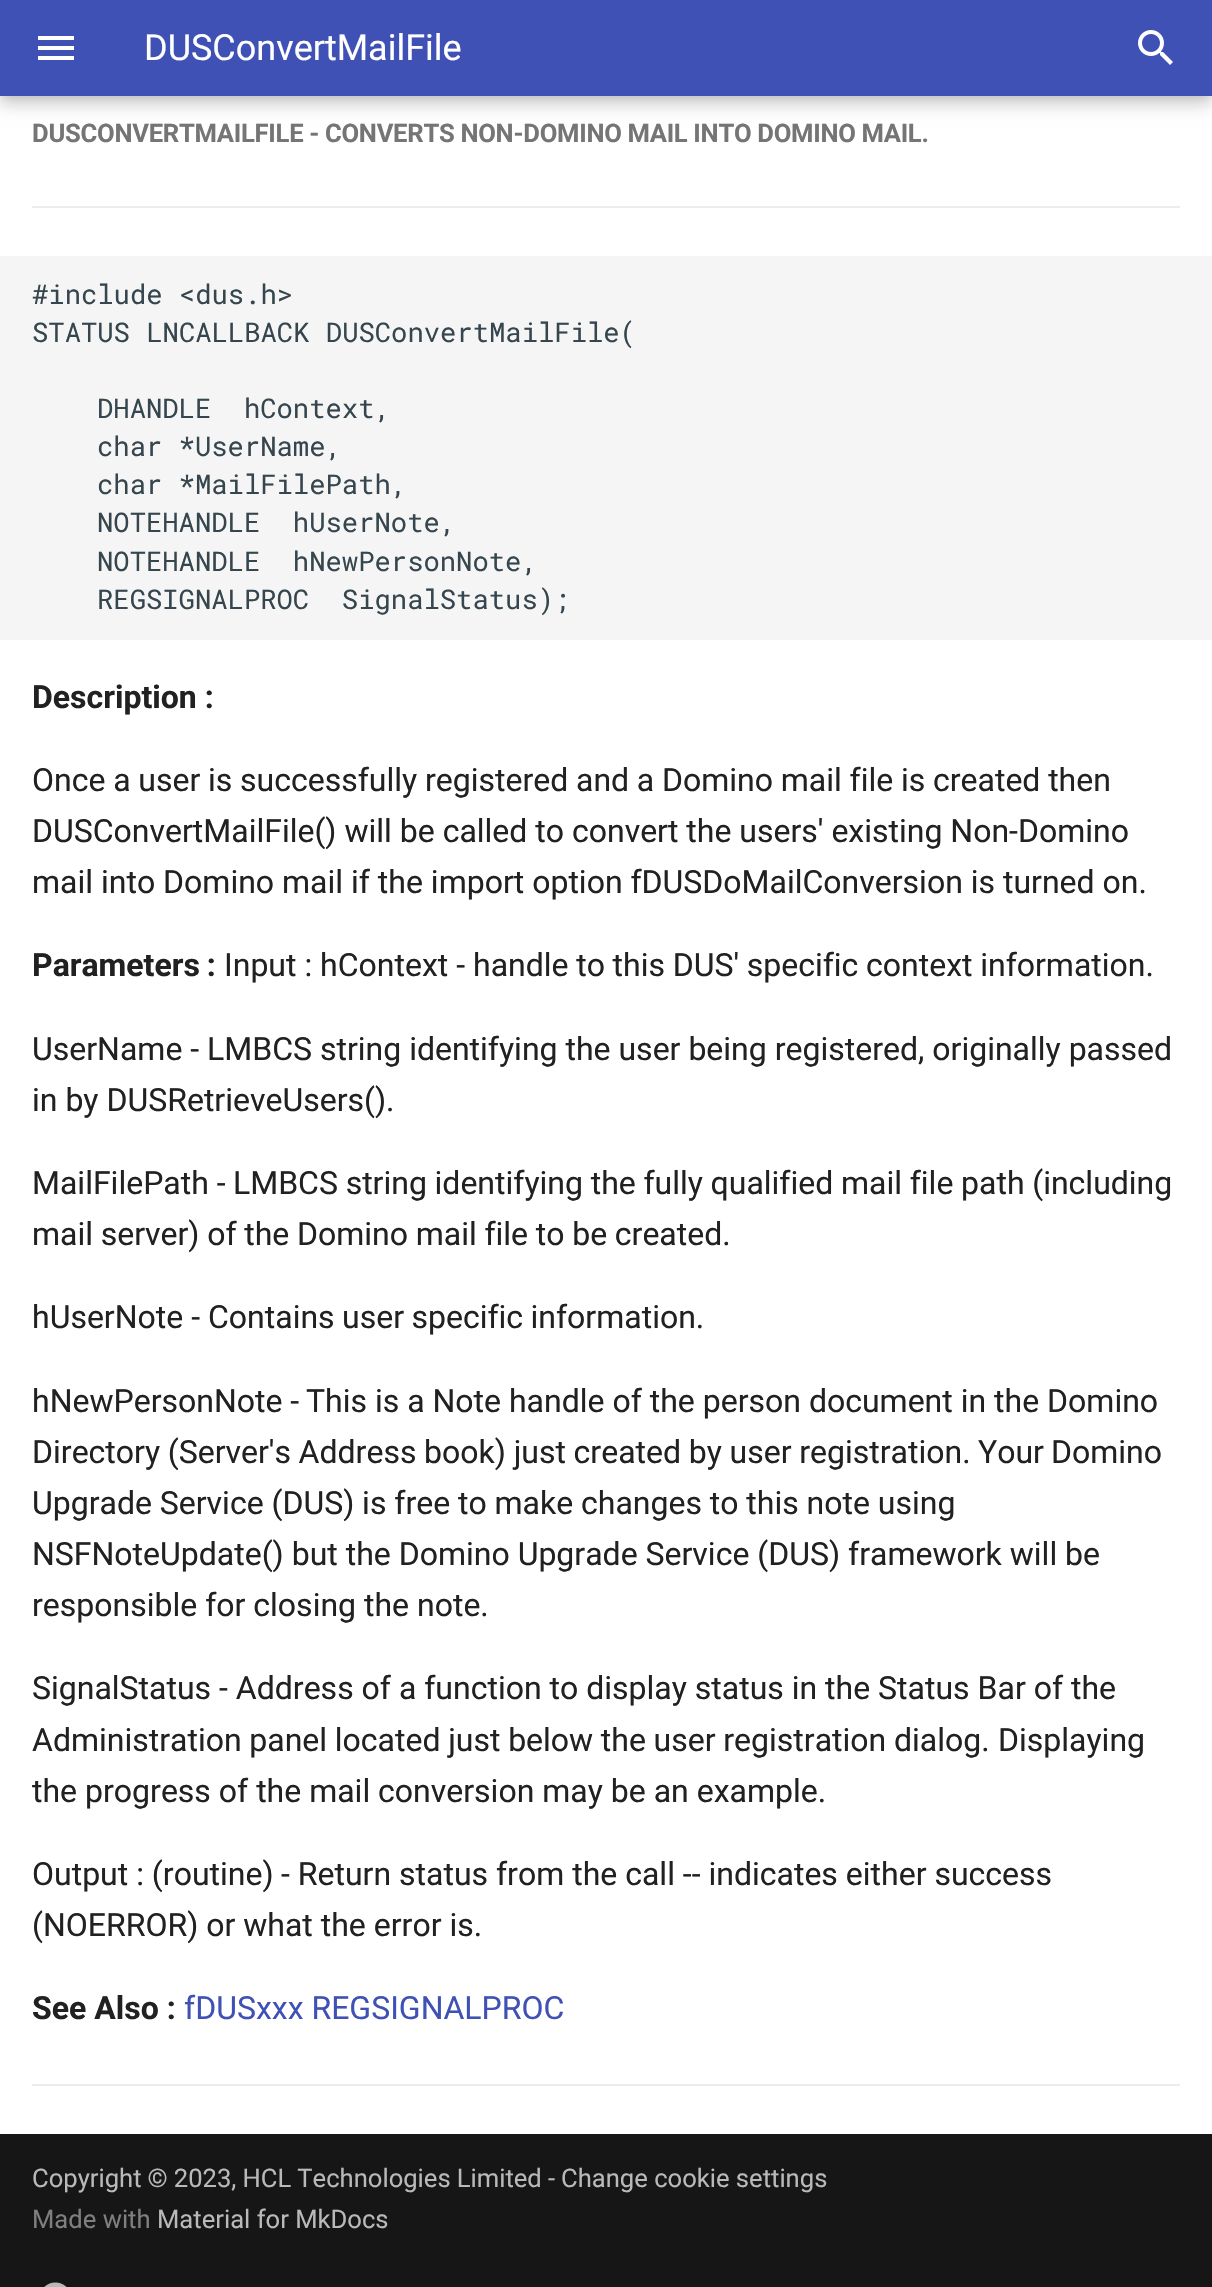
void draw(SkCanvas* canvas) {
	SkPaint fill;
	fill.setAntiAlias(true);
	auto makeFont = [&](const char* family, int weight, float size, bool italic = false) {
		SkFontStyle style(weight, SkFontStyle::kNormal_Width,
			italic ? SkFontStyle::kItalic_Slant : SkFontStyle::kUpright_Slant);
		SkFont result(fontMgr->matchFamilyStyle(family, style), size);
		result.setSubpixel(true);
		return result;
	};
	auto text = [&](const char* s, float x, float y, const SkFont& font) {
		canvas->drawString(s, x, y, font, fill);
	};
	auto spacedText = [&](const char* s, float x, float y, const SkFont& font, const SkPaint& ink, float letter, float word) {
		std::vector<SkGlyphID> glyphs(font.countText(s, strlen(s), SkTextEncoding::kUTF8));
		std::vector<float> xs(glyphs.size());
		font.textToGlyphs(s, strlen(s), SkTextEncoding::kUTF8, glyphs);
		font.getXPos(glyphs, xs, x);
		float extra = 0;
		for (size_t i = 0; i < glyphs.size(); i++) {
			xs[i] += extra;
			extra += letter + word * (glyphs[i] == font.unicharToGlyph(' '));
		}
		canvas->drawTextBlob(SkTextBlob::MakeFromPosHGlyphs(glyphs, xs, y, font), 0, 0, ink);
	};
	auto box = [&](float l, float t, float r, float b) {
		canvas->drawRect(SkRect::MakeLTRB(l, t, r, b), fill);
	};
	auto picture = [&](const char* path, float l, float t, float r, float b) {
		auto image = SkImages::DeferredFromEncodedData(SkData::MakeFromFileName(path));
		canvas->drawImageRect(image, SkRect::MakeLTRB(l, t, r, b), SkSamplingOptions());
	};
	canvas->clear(0xFFFFFFFF);
	fill.setColor(0x33000000);
	fill.setMaskFilter(SkMaskFilter::MakeBlur(kNormal_SkBlurStyle, 8));
	canvas->drawRect(SkRect::MakeLTRB(0, 8, 1212, 104), fill);
	fill.setMaskFilter(nullptr);
	fill.setColor(0x1A000000);
	fill.setMaskFilter(SkMaskFilter::MakeBlur(kNormal_SkBlurStyle, 4));
	canvas->drawRect(SkRect::MakeLTRB(0, 0, 1212, 96), fill);
	fill.setMaskFilter(nullptr);
	fill.setColor(0xFF4051B5);
	box(0, 0, 1212, 96);
	picture("image0.png", 38, 36, 74, 60);
	picture("image1.png", 1138, 30, 1173, 65);
	fill.setColor(0xFFEDEDED);
	box(32, 206, 1180, 208);
	fill.setColor(0xFFF5F5F5);
	box(0, 256, 1212, 640);
	fill.setColor(0xFFEDEDED);
	box(32, 2084, 1180, 2086);
	fill.setColor(0xFF161616);
	box(0, 2134, 1212, 2287);
	picture("image2.png", 44, 2282, 67, 2287);
	auto font1 = makeFont("Roboto", 400, 36);
	fill.setColor(0xFFFFFFFF);
	text("DUSConvertMailFile", 144, 60, font1);
	auto font2 = makeFont("Roboto", 700, 25.6f);
	fill.setColor(0xFF757575);
	spacedText("DUSCONVERTMAILFILE - CONVERTS NON-DOMINO MAIL INTO DOMINO MAIL.", 32, 142, font2, fill, -0.25f, -0.25f);
	auto font3 = makeFont("Roboto Mono", 400, 27.2f);
	fill.setColor(0xFF36464E);
	text("#include <dus.h>", 32, 304, font3);
	text("STATUS LNCALLBACK DUSConvertMailFile(", 32, 342, font3);
	text("DHANDLE  hContext,", 97, 418, font3);
	text("char *UserName,", 97, 456, font3);
	text("char *MailFilePath,", 97, 494, font3);
	text("NOTEHANDLE  hUserNote,", 97, 532, font3);
	text("NOTEHANDLE  hNewPersonNote,", 97, 571, font3);
	text("REGSIGNALPROC  SignalStatus);", 97, 609, font3);
	auto font4 = makeFont("Roboto", 700, 32);
	fill.setColor(0xFF212121);
	text("Description :", 32, 708, font4);
	auto font5 = makeFont("Roboto", 400, 32);
	spacedText("Once a user is successfully registered and a Domino mail file is created then", 32, 791, font5, fill, 0, -0.2f);
	text("DUSConvertMailFile() will be called to convert the users' existing Non-Domino", 32, 842, font5);
	text("mail into Domino mail if the import option fDUSDoMailConversion is turned on.", 32, 893, font5);
	spacedText("Parameters :", 32, 976, font4, fill, 0, -1);
	text("Input : hContext -", 224, 976, font5);
	spacedText("handle to this DUS' specific context information.", 473, 976, font5, fill, 0, -0.25f);
	text("UserName - LMBCS string identifying the user being registered, originally passed", 32, 1060, font5);
	text("in by DUSRetrieveUsers().", 32, 1111, font5);
	text("MailFilePath -", 32, 1194, font5);
	spacedText("LMBCS string identifying the fully qualified mail file path (including", 233, 1194, font5, fill, 0, -0.25f);
	spacedText("mail server) of the Domino mail file to be created.", 32, 1245, font5, fill, 0, -0.25f);
	text("hUserNote -", 32, 1328, font5);
	spacedText("Contains user specific information.", 208, 1328, font5, fill, 0, -0.5f);
	text("hNewPersonNote -", 32, 1412, font5);
	text("This is a Note handle of the person document in the Domino", 306, 1412, font5);
	spacedText("Directory (Server's Address book) just created by user registration.", 32, 1463, font5, fill, 0, -0.25f);
	spacedText("Your Domino", 978, 1463, font5, fill, 0, -1);
	spacedText("Upgrade Service (DUS) is free to make changes to this note using", 32, 1514, font5, fill, 0, -0.1f);
	text("NSFNoteUpdate() but the Domino Upgrade Service (DUS) framework will be", 32, 1565, font5);
	text("responsible for closing the note.", 32, 1616, font5);
	text("SignalStatus - Address of a function to display status in the Status Bar of the", 32, 1699, font5);
	spacedText("Administration panel located just below the user registration dialog.", 32, 1751, font5, fill, 0, -0.25f);
	text("Displaying", 998, 1751, font5);
	text("the progress of the mail conversion may be an example.", 32, 1802, font5);
	text("Output : (routine)", 32, 1885, font5);
	text("- Return status from the call -- indicates either success", 281, 1885, font5);
	text("(NOERROR) or what the error is.", 32, 1936, font5);
	text("See Also :", 32, 2019, font4);
	fill.setColor(0xFF4051B5);
	text("fDUSxxx REGSIGNALPROC", 184, 2019, font5);
	auto font6 = makeFont("Roboto", 400, 25.6f);
	fill.setColor(0xFFB9B9B9);
	spacedText("Copyright © 2023, HCL Technologies Limited -", 32, 2187, font6, fill, 0, -0.25f);
	text("Change cookie settings", 561, 2187, font6);
	fill.setColor(0xFF7F7F7F);
	text("Made with", 32, 2228, font6);
	fill.setColor(0xFFB9B9B9);
	text("Material for MkDocs", 157, 2228, font6);
}
